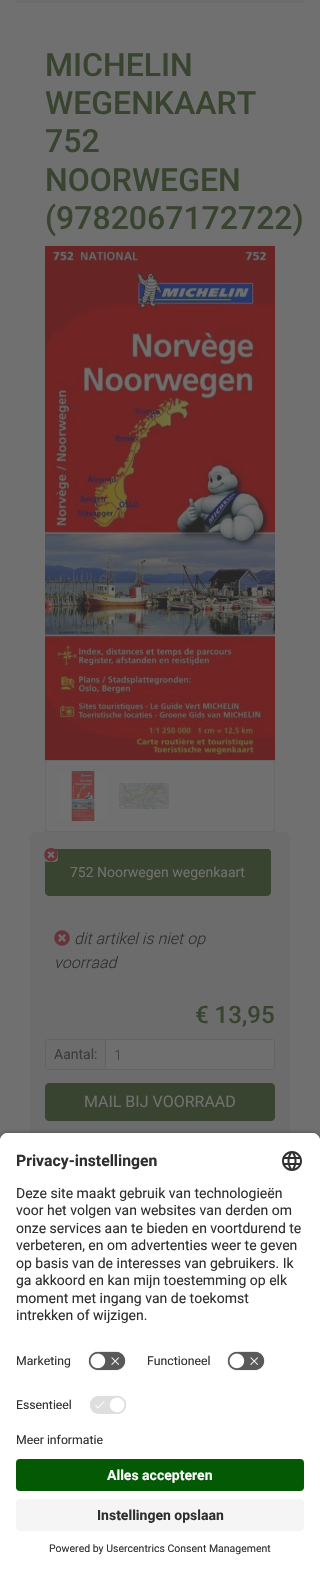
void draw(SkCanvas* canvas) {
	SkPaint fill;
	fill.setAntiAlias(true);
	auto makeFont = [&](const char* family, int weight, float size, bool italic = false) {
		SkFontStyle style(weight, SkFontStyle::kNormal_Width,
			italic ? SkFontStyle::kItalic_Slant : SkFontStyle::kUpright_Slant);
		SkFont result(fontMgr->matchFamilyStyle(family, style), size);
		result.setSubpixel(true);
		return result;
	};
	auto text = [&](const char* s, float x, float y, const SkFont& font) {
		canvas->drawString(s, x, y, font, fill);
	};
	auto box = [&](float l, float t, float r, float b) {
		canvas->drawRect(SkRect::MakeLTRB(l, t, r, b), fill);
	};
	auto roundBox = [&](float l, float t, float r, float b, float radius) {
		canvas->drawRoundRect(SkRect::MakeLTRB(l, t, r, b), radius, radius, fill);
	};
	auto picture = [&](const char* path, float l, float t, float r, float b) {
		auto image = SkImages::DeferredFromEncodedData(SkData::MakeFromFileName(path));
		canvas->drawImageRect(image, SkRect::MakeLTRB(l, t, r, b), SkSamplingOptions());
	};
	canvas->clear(0xFF707070);
	fill.setColor(0xFF6B6B6B);
	roundBox(15, -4, 305, 3, 4);
	picture("image0.png", 45, 246, 275, 760);
	fill.setStyle(SkPaint::kStroke_Style);
	fill.setStrokeWidth(1);
	fill.setColor(0xFF686868);
	canvas->drawRect(SkRect::MakeLTRB(45.5f, 760.5f, 274.5f, 831.5f), fill);
	picture("image1.png", 58, 771, 108, 821);
	picture("image2.png", 119, 783, 169, 811);
	fill.setStyle(SkPaint::kFill_Style);
	fill.setColor(0xFF6C6C6C);
	roundBox(30, 832, 290, 1542, 5);
	fill.setColor(0xFF38442F);
	canvas->drawPath(SkPathBuilder().moveTo(48, 849.5f).lineTo(268, 849.5f).cubicTo(269.5f, 849.5f, 270.5f, 850.5f, 270.5f, 852).lineTo(270.5f, 892).cubicTo(270.5f, 894, 269, 895.5f, 267, 895.5f).lineTo(49, 895.5f).cubicTo(47, 895.5f, 45.5f, 894, 45.5f, 892).lineTo(45.5f, 852).cubicTo(45.5f, 850.5f, 46.5f, 849.5f, 48, 849.5f).close().detach(), fill);
	fill.setStyle(SkPaint::kStroke_Style);
	canvas->drawPath(SkPathBuilder().moveTo(48, 849.5f).lineTo(268, 849.5f).cubicTo(269.5f, 849.5f, 270.5f, 850.5f, 270.5f, 852).lineTo(270.5f, 892).cubicTo(270.5f, 894, 269, 895.5f, 267, 895.5f).lineTo(49, 895.5f).cubicTo(47, 895.5f, 45.5f, 894, 45.5f, 892).lineTo(45.5f, 852).cubicTo(45.5f, 850.5f, 46.5f, 849.5f, 48, 849.5f).close().detach(), fill);
	fill.setStyle(SkPaint::kFill_Style);
	fill.setColor(0xFF6C6C6C);
	roundBox(44, 850, 58, 862, 4);
	picture("image3.png", 44, 848, 58, 862);
	picture("image4.png", 54, 930, 70, 946);
	fill.setStyle(SkPaint::kStroke_Style);
	fill.setColor(0xFF636363);
	canvas->drawPath(SkPathBuilder().moveTo(48, 1039.5f).lineTo(105.5f, 1039.5f).lineTo(105.5f, 1069.5f).lineTo(48, 1069.5f).cubicTo(46.5f, 1069.5f, 45.5f, 1068.5f, 45.5f, 1067).lineTo(45.5f, 1042).cubicTo(45.5f, 1040.5f, 46.5f, 1039.5f, 48, 1039.5f).close().detach(), fill);
	fill.setStyle(SkPaint::kFill_Style);
	fill.setColor(0xFF6F6F6F);
	canvas->drawPath(SkPathBuilder().moveTo(105.5f, 1039.5f).lineTo(272, 1039.5f).cubicTo(273.5f, 1039.5f, 274.5f, 1040.5f, 274.5f, 1042).lineTo(274.5f, 1067).cubicTo(274.5f, 1068.5f, 273.5f, 1069.5f, 272, 1069.5f).lineTo(105.5f, 1069.5f).close().detach(), fill);
	fill.setStyle(SkPaint::kStroke_Style);
	fill.setColor(0xFF636363);
	canvas->drawPath(SkPathBuilder().moveTo(105.5f, 1039.5f).lineTo(272, 1039.5f).cubicTo(273.5f, 1039.5f, 274.5f, 1040.5f, 274.5f, 1042).lineTo(274.5f, 1067).cubicTo(274.5f, 1068.5f, 273.5f, 1069.5f, 272, 1069.5f).lineTo(105.5f, 1069.5f).close().detach(), fill);
	fill.setStyle(SkPaint::kFill_Style);
	fill.setColor(0xFF38442F);
	canvas->drawRoundRect(SkRect::MakeLTRB(45.5f, 1083.5f, 274.5f, 1120.5f), 3.5f, 3.5f, fill);
	fill.setStyle(SkPaint::kStroke_Style);
	canvas->drawRoundRect(SkRect::MakeLTRB(45.5f, 1083.5f, 274.5f, 1120.5f), 3.5f, 3.5f, fill);
	fill.setStyle(SkPaint::kFill_Style);
	fill.setColor(0xCC000000);
	fill.setMaskFilter(SkMaskFilter::MakeBlur(kNormal_SkBlurStyle, 3.5f));
	canvas->drawRoundRect(SkRect::MakeLTRB(0, 1136, 320, 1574), 8, 8, fill);
	fill.setMaskFilter(nullptr);
	fill.setColor(0xFFFFFFFF);
	canvas->drawPath(SkPathBuilder().moveTo(8, 1133).lineTo(312, 1133).cubicTo(316.5f, 1133, 320, 1136.5f, 320, 1141).lineTo(320, 1433).lineTo(0, 1433).lineTo(0, 1141).cubicTo(0, 1136.5f, 3.5f, 1133, 8, 1133).close().detach(), fill);
	canvas->drawPath(SkPathBuilder().moveTo(8, 1133).lineTo(312, 1133).cubicTo(316.5f, 1133, 320, 1136.5f, 320, 1141).lineTo(320, 1345).lineTo(0, 1345).lineTo(0, 1141).cubicTo(0, 1136.5f, 3.5f, 1133, 8, 1133).close().detach(), fill);
	picture("image5.png", 282, 1151, 302, 1171);
	picture("image6.png", 88, 1351, 126, 1371);
	picture("image6.png", 227, 1351, 265, 1371);
	picture("image7.png", 89, 1395, 127, 1414);
	box(0, 1433, 320, 1571);
	fill.setColor(0xFF045905);
	roundBox(16, 1459, 304, 1491, 4);
	fill.setColor(0xFFF5F5F5);
	roundBox(16, 1499, 304, 1531, 4);
	auto font1 = makeFont("Roboto", 500, 32);
	fill.setColor(0xFF38442F);
	text("MICHELIN", 45, 76, font1);
	text("WEGENKAART", 45, 114, font1);
	text("752", 45, 152, font1);
	text("NOORWEGEN", 45, 191, font1);
	text("(9782067172722)", 45, 229, font1);
	auto font2 = makeFont("Roboto", 400, 14);
	fill.setColor(0xFF707070);
	text("752 Noorwegen wegenkaart", 70, 877, font2);
	auto font3 = makeFont("Roboto", 300, 16, true);
	fill.setColor(0xFF2F2F2F);
	text("dit artikel is niet op", 74, 944, font3);
	text("voorraad", 54, 968, font3);
	auto font4 = makeFont("Roboto", 500, 24);
	fill.setColor(0xFF38442F);
	text("€ 13,95", 195, 1023, font4);
	fill.setColor(0xFF3C3C3C);
	text("Aantal:", 54, 1059, font2);
	auto font5 = makeFont("Roboto", 300, 14);
	text("1", 114, 1060, font5);
	auto font6 = makeFont("Roboto", 400, 16);
	fill.setColor(0xFF707070);
	text("MAIL BIJ VOORRAAD", 84, 1107, font6);
	auto font7 = makeFont("Roboto", 700, 15.75f);
	fill.setColor(0xFF2F2F2F);
	text("Privacy-instellingen", 16, 1166, font7);
	text("Deze site maakt gebruik van technologieën", 16, 1198, font2);
	text("voor het volgen van websites van derden om", 16, 1215, font2);
	text("onze services aan te bieden en voortdurend te", 16, 1233, font2);
	text("verbeteren, en om advertenties weer te geven", 16, 1250, font2);
	text("op basis van de interesses van gebruikers. Ik", 16, 1268, font2);
	text("ga akkoord en kan mijn toestemming op elk", 16, 1285, font2);
	text("moment met ingang van de toekomst", 16, 1303, font2);
	text("intrekken of wijzigen.", 16, 1320, font2);
	auto font8 = makeFont("Roboto", 400, 12.25f);
	text("Marketing", 16, 1365, font8);
	text("Functioneel", 147, 1365, font8);
	text("Essentieel", 16, 1409, font8);
	text("Meer informatie", 16, 1444, font8);
	auto font9 = makeFont("Roboto", 700, 14);
	fill.setColor(0xFFFAFAFA);
	text("Alles accepteren", 107, 1480, font9);
	fill.setColor(0xFF2F2F2F);
	text("Instellingen opslaan", 97, 1520, font9);
	auto font10 = makeFont("Roboto", 400, 10.5f);
	text("Powered by Usercentrics Consent Management", 49, 1552, font10);
}
